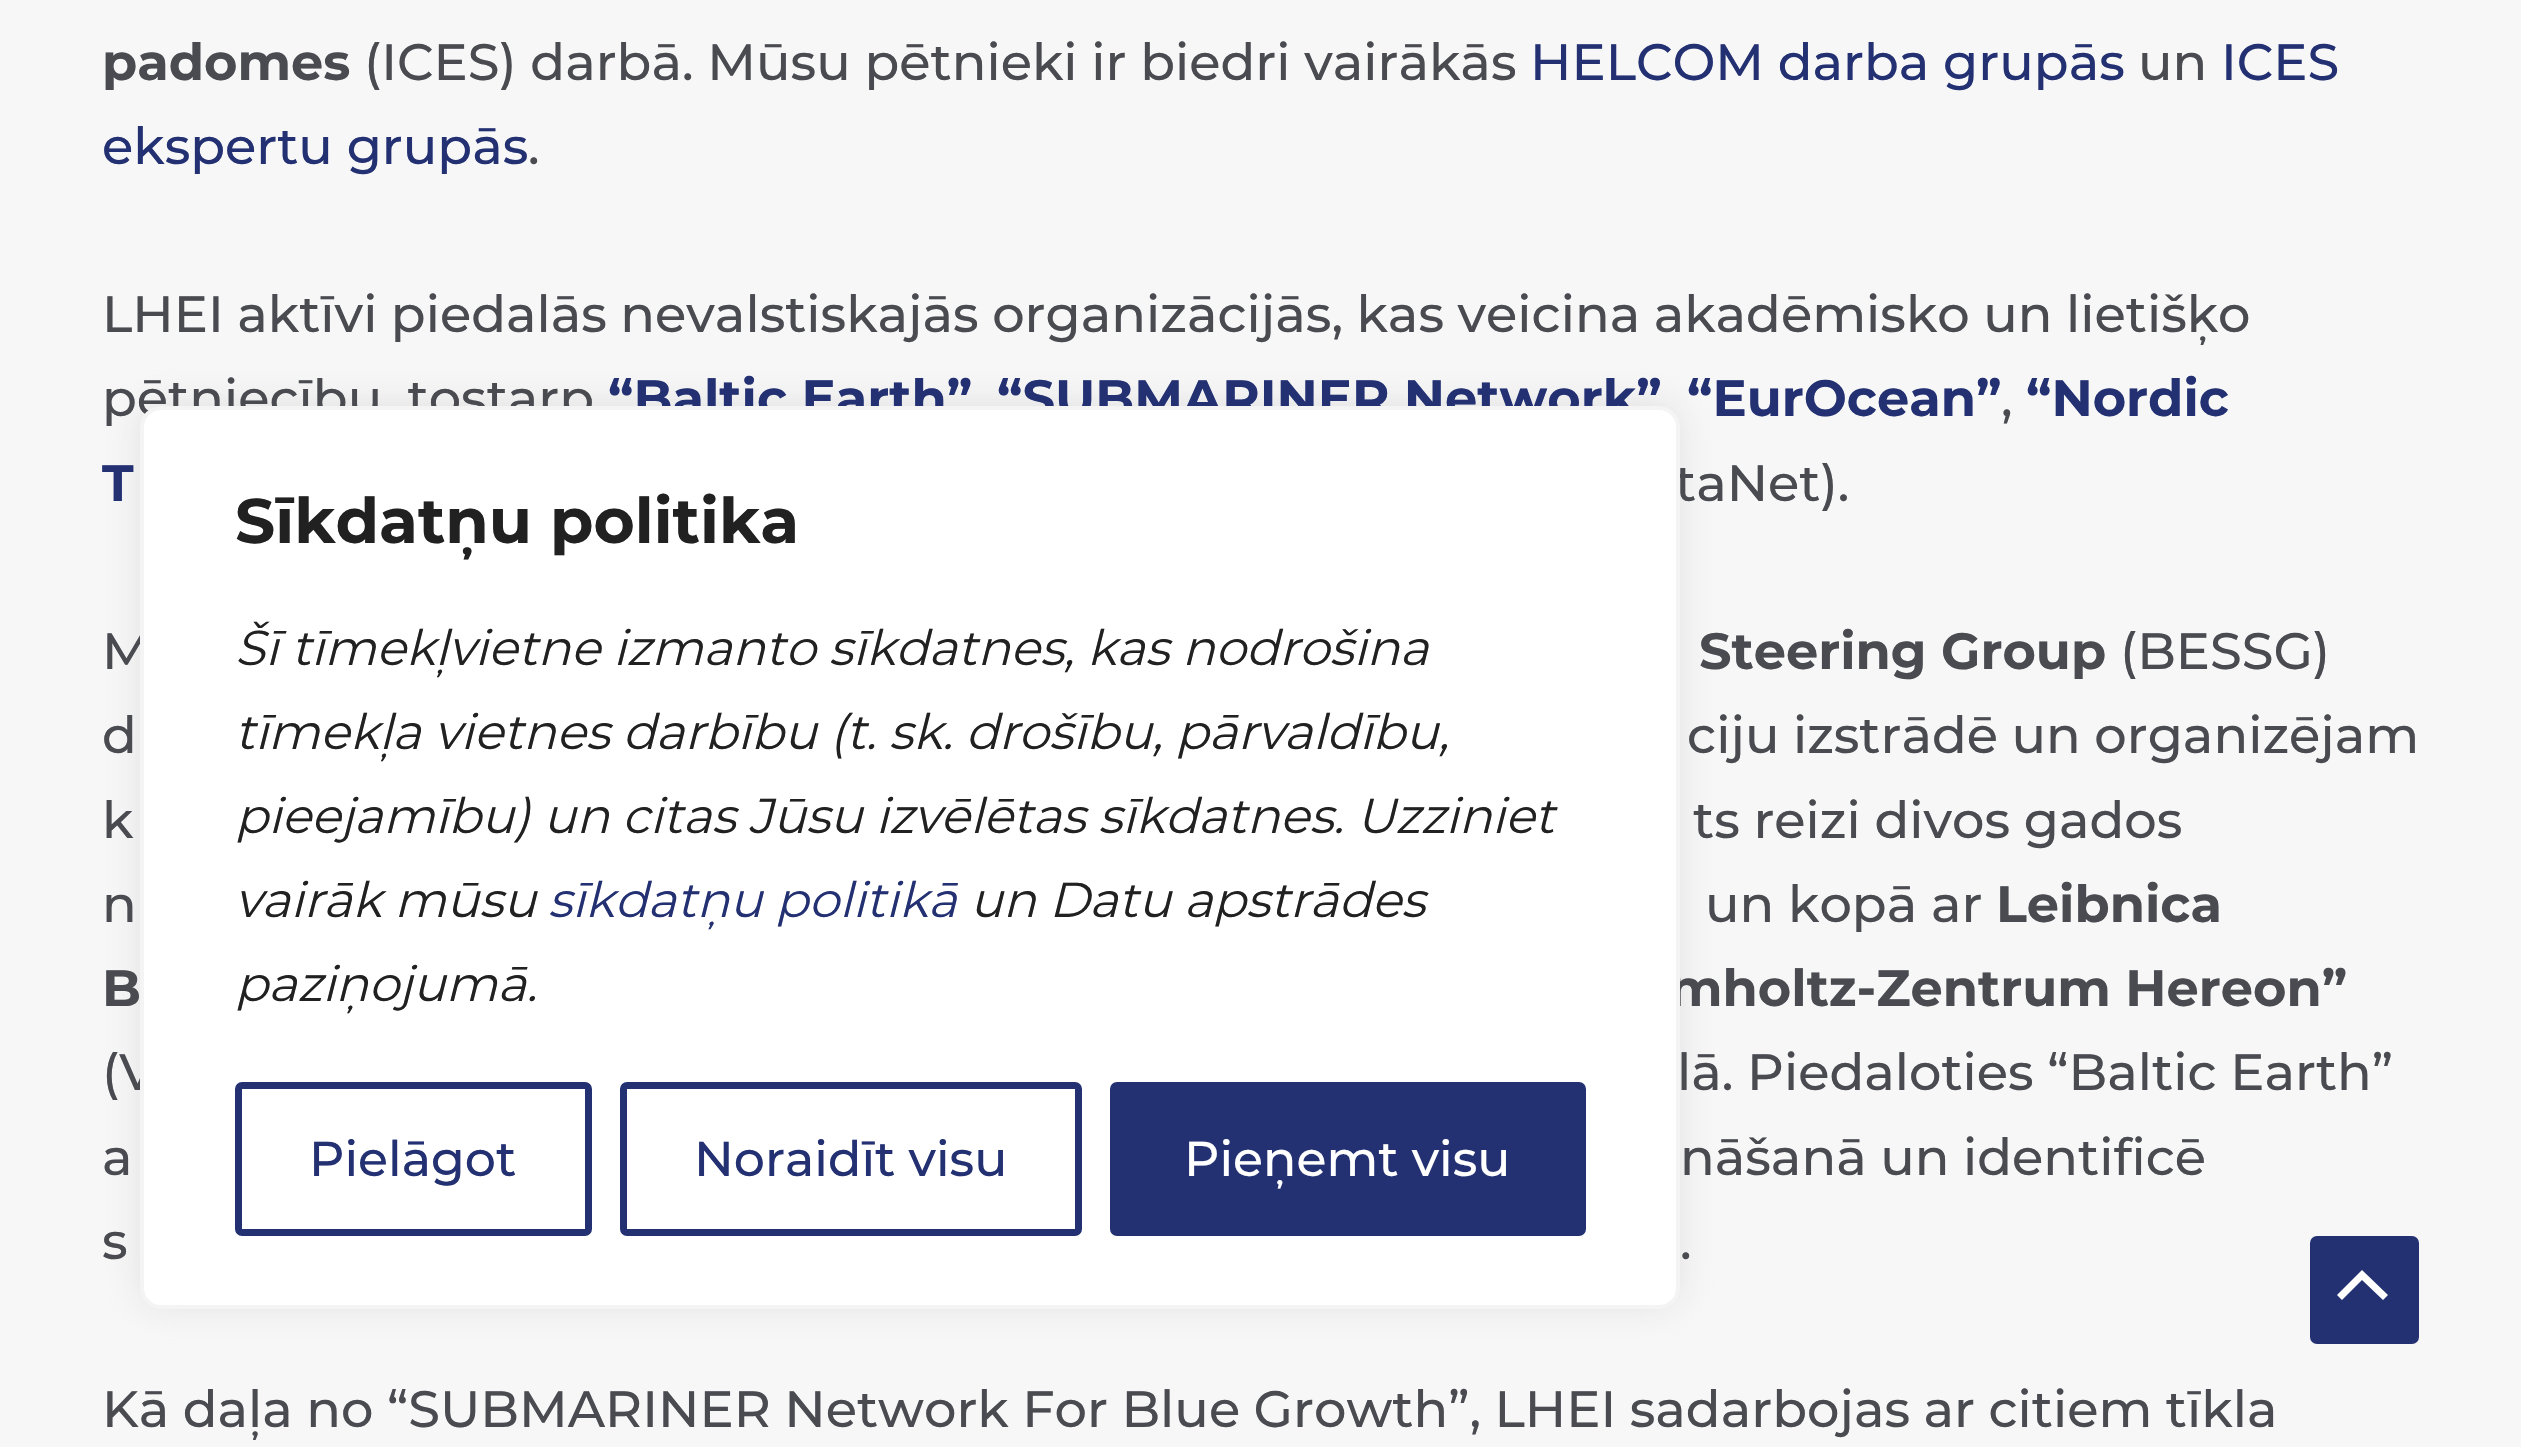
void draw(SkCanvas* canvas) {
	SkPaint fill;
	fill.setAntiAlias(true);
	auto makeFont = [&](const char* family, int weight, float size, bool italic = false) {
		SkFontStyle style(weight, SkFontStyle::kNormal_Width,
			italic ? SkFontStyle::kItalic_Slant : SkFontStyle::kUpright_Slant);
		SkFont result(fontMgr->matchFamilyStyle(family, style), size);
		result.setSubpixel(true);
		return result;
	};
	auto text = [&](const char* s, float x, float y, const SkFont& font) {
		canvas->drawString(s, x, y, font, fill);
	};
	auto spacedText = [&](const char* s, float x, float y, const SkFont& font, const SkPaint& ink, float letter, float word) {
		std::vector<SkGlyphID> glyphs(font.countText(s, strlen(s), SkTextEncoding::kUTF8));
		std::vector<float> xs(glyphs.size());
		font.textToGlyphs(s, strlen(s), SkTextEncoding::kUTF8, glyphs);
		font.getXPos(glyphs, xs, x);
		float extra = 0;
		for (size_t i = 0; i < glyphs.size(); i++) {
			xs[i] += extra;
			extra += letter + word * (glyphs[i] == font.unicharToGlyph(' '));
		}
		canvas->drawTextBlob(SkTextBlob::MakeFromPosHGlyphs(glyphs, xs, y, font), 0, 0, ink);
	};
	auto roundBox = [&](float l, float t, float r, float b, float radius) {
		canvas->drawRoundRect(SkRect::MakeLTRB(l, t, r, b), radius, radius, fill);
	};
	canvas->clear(0xFFF7F7F7);
	fill.setColor(0x4DACABAB);
	fill.setMaskFilter(SkMaskFilter::MakeBlur(kNormal_SkBlurStyle, 17.5f));
	canvas->drawRoundRect(SkRect::MakeLTRB(140, 403, 1680, 1306), 21, 21, fill);
	fill.setMaskFilter(nullptr);
	fill.setColor(0xFF233173);
	roundBox(2310, 1236, 2419, 1344, 7);
	fill.setColor(0xFFFFFFFF);
	canvas->drawPath(SkPathBuilder().moveTo(2388, 1295).lineTo(2362, 1270).lineTo(2337, 1295).lineTo(2342, 1300).lineTo(2362, 1280).lineTo(2383, 1300).close().detach(), fill);
	auto font1 = makeFont("Montserrat", 700, 51.05f);
	fill.setColor(0xFF494B51);
	text("padomes", 102, 80, font1);
	auto font2 = makeFont("Montserrat", 500, 51.05f);
	text("(ICES) darbā. Mūsu pētnieki ir biedri vairākās", 364, 80, font2);
	fill.setColor(0xFF233173);
	text("HELCOM darba grupās", 1530, 80, font2);
	fill.setColor(0xFF494B51);
	text("un", 2138, 80, font2);
	fill.setColor(0xFF233173);
	text("ICES", 2221, 80, font2);
	text("ekspertu grupās", 102, 164, font2);
	fill.setColor(0xFF494B51);
	text(".", 528, 164, font2);
	spacedText("LHEI aktīvi piedalās nevalstiskajās organizācijās, kas veicina akadēmisko un lietišķo", 102, 332, font2, fill, 0, -0.25f);
	text("pētniecību, tostarp", 102, 416, font2);
	fill.setColor(0xFF233173);
	text("“Baltic Earth”", 608, 416, font1);
	text("“SUBMARINER Network”", 997, 416, font1);
	text("“EurOcean”", 1687, 416, font1);
	fill.setColor(0xFF494B51);
	text(",", 2001, 416, font2);
	fill.setColor(0xFF233173);
	text("“Nordic", 2026, 416, font1);
	text("T", 102, 501, font1);
	fill.setColor(0xFF494B51);
	text("taNet).", 1675, 501, font2);
	text("M", 102, 669, font2);
	text("Steering Group", 1699, 669, font1);
	text("(BESSG)", 2120, 669, font2);
	spacedText("d", 102, 753, font2, fill, 0, -0.25f);
	spacedText("ciju izstrādē un organizējam", 1687, 753, font2, fill, 0, -0.25f);
	text("k", 102, 838, font2);
	text("ts reizi divos gados", 1693, 838, font2);
	text("n", 102, 922, font2);
	text("un kopā ar", 1705, 922, font2);
	text("Leibnica", 1996, 922, font1);
	text("B", 102, 1006, font1);
	text("mholtz-Zentrum Hereon”", 1669, 1006, font1);
	text("(V", 102, 1090, font2);
	text("lā. Piedaloties “Baltic Earth”", 1677, 1090, font2);
	spacedText("a", 102, 1175, font2, fill, 0, -0.25f);
	spacedText("nāšanā un identificē", 1680, 1175, font2, fill, 0, -0.25f);
	text("s", 102, 1259, font2);
	text(".", 1680, 1259, font2);
	spacedText("Kā daļa no “SUBMARINER Network For Blue Growth”, LHEI sadarbojas ar citiem tīkla", 102, 1427, font2, fill, 0, -0.25f);
	fill.setColor(0xFFFFFFFF);
	canvas->drawRoundRect(SkRect::MakeLTRB(142, 408, 1678, 1307), 19, 19, fill);
	fill.setStyle(SkPaint::kStroke_Style);
	fill.setStrokeWidth(4);
	fill.setColor(0xFFF4F4F4);
	canvas->drawRoundRect(SkRect::MakeLTRB(142, 408, 1678, 1307), 19, 19, fill);
	auto font3 = makeFont("Montserrat", 700, 63);
	fill.setStyle(SkPaint::kFill_Style);
	fill.setColor(0xFF212121);
	text("Sīkdatņu politika", 235, 543, font3);
	auto font4 = makeFont("Montserrat", 400, 49, true);
	text("Šī tīmekļvietne izmanto sīkdatnes, kas nodrošina", 235, 665, font4);
	text("tīmekļa vietnes darbību (t. sk. drošību, pārvaldību,", 235, 749, font4);
	text("pieejamību) un citas Jūsu izvēlētas sīkdatnes. Uzziniet", 235, 833, font4);
	text("vairāk mūsu", 235, 917, font4);
	fill.setColor(0xFF233173);
	text("sīkdatņu politikā", 548, 917, font4);
	fill.setColor(0xFF212121);
	text("un Datu apstrādes", 970, 917, font4);
	text("paziņojumā.", 235, 1001, font4);
	fill.setStyle(SkPaint::kStroke_Style);
	fill.setStrokeWidth(7);
	fill.setColor(0xFF233173);
	canvas->drawRoundRect(SkRect::MakeLTRB(238.5f, 1085.5f, 588.5f, 1232.5f), 3.5f, 3.5f, fill);
	auto font5 = makeFont("Montserrat", 500, 49);
	fill.setStyle(SkPaint::kFill_Style);
	text("Pielāgot", 309, 1176, font5);
	fill.setStyle(SkPaint::kStroke_Style);
	canvas->drawRoundRect(SkRect::MakeLTRB(623.5f, 1085.5f, 1078.5f, 1232.5f), 3.5f, 3.5f, fill);
	fill.setStyle(SkPaint::kFill_Style);
	text("Noraidīt visu", 694, 1176, font5);
	canvas->drawRoundRect(SkRect::MakeLTRB(1113.5f, 1085.5f, 1582.5f, 1232.5f), 3.5f, 3.5f, fill);
	fill.setStyle(SkPaint::kStroke_Style);
	canvas->drawRoundRect(SkRect::MakeLTRB(1113.5f, 1085.5f, 1582.5f, 1232.5f), 3.5f, 3.5f, fill);
	fill.setStyle(SkPaint::kFill_Style);
	fill.setColor(0xFFFFFFFF);
	text("Pieņemt visu", 1184, 1176, font5);
}
